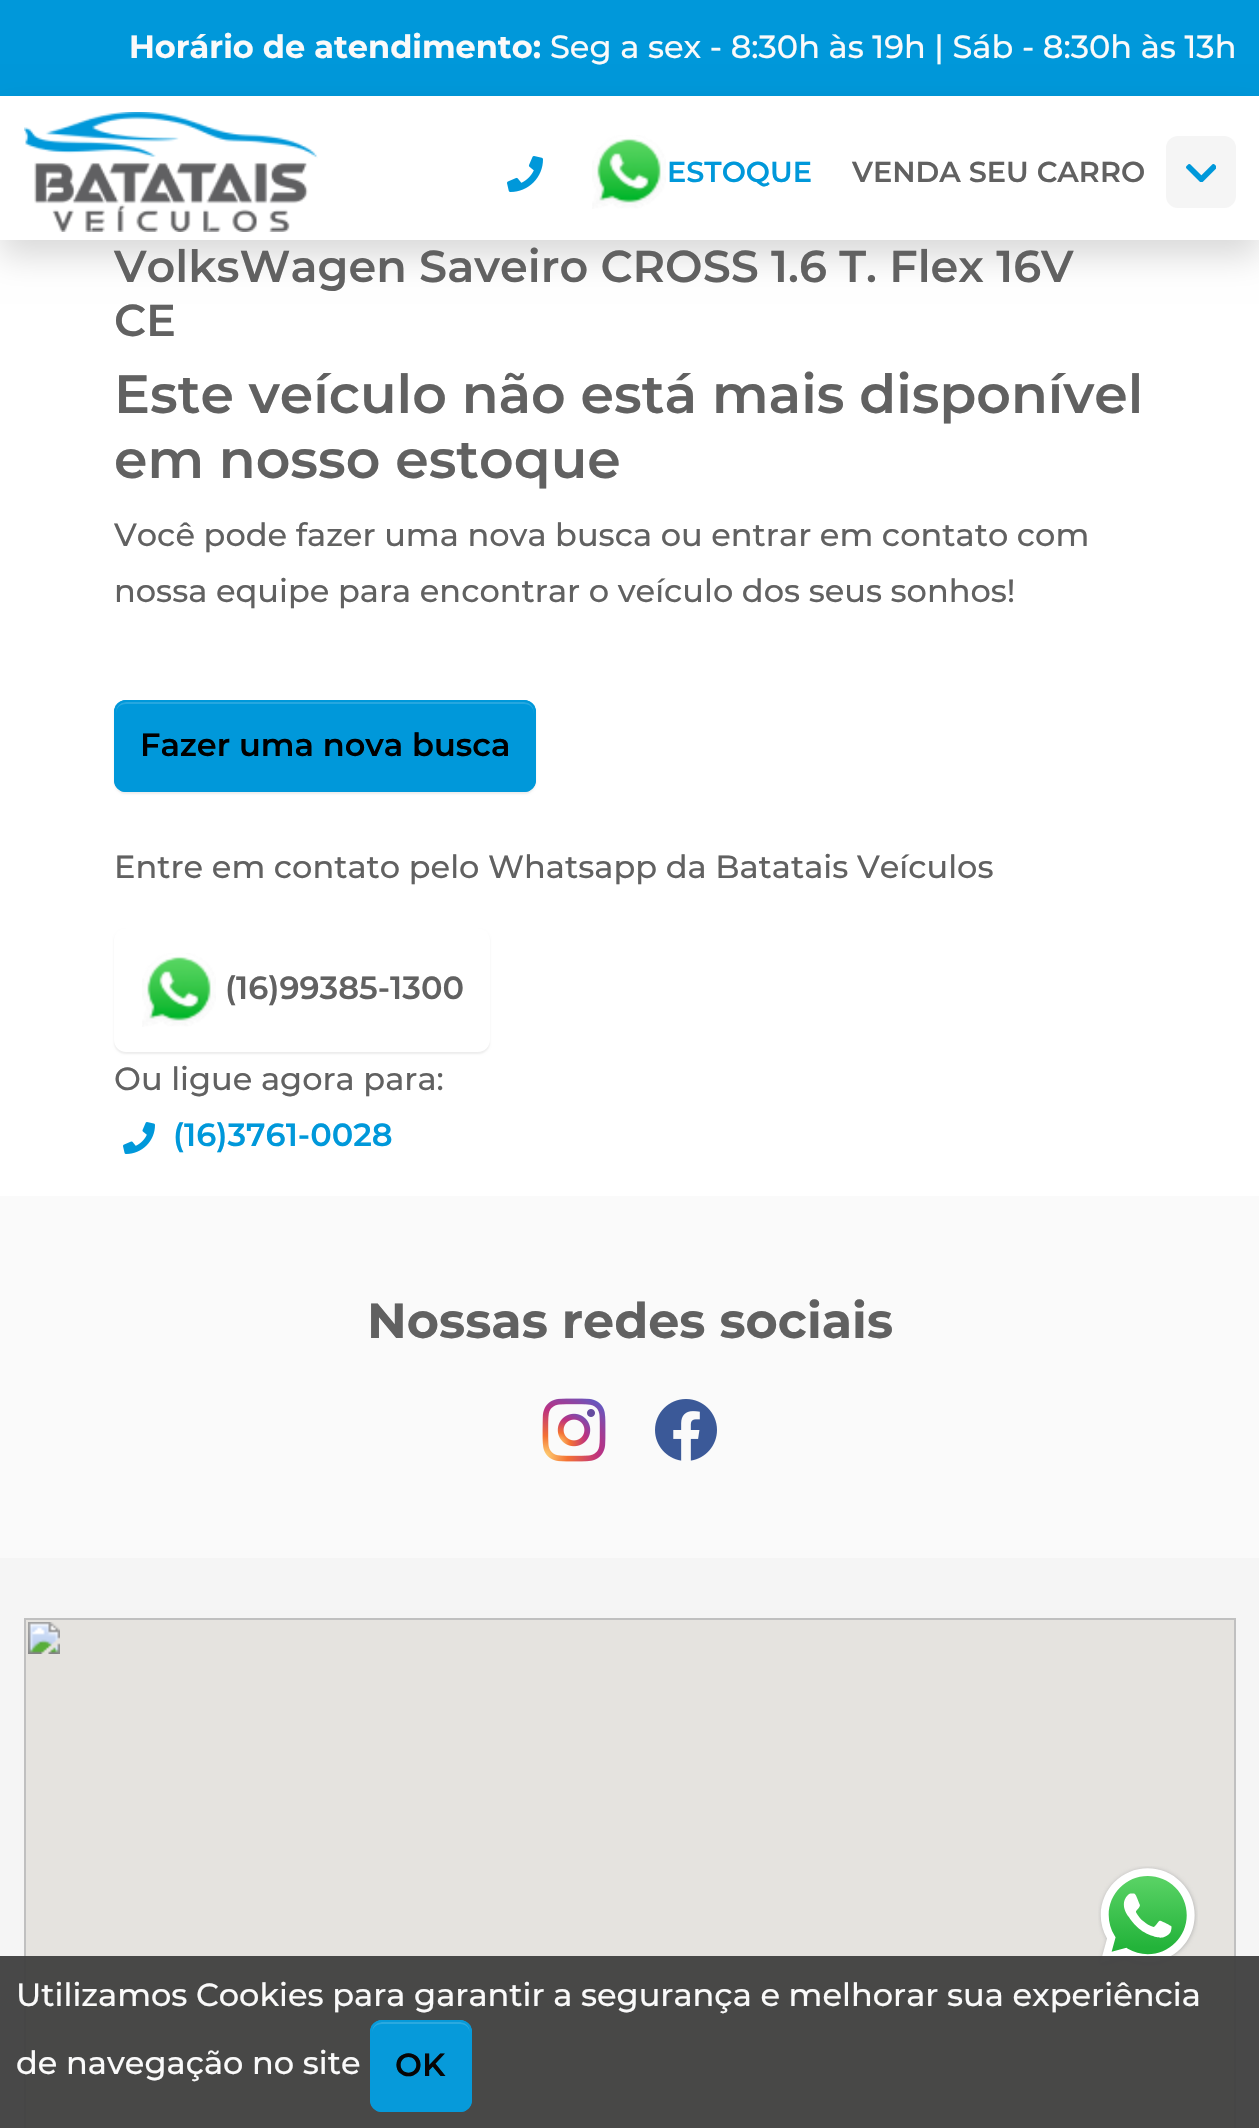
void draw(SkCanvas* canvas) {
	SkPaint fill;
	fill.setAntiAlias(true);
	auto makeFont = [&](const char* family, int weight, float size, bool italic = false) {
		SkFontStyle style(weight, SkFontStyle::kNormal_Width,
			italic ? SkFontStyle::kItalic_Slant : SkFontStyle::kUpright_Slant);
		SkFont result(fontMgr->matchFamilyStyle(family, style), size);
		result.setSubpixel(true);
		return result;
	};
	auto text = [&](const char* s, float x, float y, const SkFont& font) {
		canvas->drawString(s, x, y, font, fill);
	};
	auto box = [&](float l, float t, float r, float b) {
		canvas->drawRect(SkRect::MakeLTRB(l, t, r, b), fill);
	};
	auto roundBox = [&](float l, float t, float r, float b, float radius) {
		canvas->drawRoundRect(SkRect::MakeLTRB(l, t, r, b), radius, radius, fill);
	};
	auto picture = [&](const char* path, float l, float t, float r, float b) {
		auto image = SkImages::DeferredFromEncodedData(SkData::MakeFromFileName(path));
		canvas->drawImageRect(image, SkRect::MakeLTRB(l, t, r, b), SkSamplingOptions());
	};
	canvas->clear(0xFFFFFFFF);
	fill.setColor(0xFF0098DA);
	box(0, 0, 1259, 96);
	canvas->save();
	canvas->clipPath(SkPathBuilder(SkPathFillType::kEvenOdd).moveTo(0, 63).lineTo(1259, 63).lineTo(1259, 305).lineTo(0, 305).close().moveTo(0, 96).lineTo(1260, 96).lineTo(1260, 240).lineTo(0, 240).close().detach(), true);
	fill.setColor(0x26000000);
	fill.setMaskFilter(SkMaskFilter::MakeBlur(kNormal_SkBlurStyle, 16));
	canvas->drawRect(SkRect::MakeLTRB(0, 112, 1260, 256), fill);
	fill.setMaskFilter(nullptr);
	canvas->restore();
	picture("image0.png", 24, 112, 318, 232);
	picture("image1.png", 507, 156, 543, 192);
	picture("image2.png", 592, 135, 666, 209);
	fill.setColor(0xFFF5F5F5);
	roundBox(1166, 136, 1236, 208, 12);
	picture("image3.png", 1186, 164, 1216, 182);
	fill.setColor(0x12000000);
	fill.setMaskFilter(SkMaskFilter::MakeBlur(kNormal_SkBlurStyle, 1));
	canvas->drawRoundRect(SkRect::MakeLTRB(114, 702, 536, 794), 12, 12, fill);
	fill.setMaskFilter(nullptr);
	fill.setColor(0xFF0098DA);
	roundBox(114, 700, 536, 792, 12);
	fill.setColor(0xFF26A7E0);
	canvas->drawPath(SkPathBuilder().moveTo(126, 704).lineTo(524, 704).cubicTo(530, 704, 534, 708, 534, 714).lineTo(534, 712).cubicTo(534, 706, 530, 702, 524, 702).lineTo(126, 702).cubicTo(120, 702, 116, 706, 116, 712).lineTo(116, 714).cubicTo(116, 708, 120, 704, 126, 704).close().detach(), fill);
	fill.setStyle(SkPaint::kStroke_Style);
	fill.setStrokeWidth(2);
	fill.setColor(0xFF0098DA);
	canvas->drawRoundRect(SkRect::MakeLTRB(115, 701, 535, 791), 11, 11, fill);
	canvas->save();
	canvas->clipPath(SkPathBuilder(SkPathFillType::kEvenOdd).moveTo(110, 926).lineTo(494, 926).lineTo(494, 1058).lineTo(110, 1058).close().moveTo(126, 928).lineTo(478, 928).cubicTo(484.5f, 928, 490, 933.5f, 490, 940).lineTo(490, 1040).cubicTo(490, 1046.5f, 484.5f, 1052, 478, 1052).lineTo(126, 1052).cubicTo(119.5f, 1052, 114, 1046.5f, 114, 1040).lineTo(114, 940).cubicTo(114, 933.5f, 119.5f, 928, 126, 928).close().detach(), true);
	fill.setStyle(SkPaint::kFill_Style);
	fill.setColor(0x12000000);
	fill.setMaskFilter(SkMaskFilter::MakeBlur(kNormal_SkBlurStyle, 1));
	canvas->drawRoundRect(SkRect::MakeLTRB(114, 930, 490, 1054), 12, 12, fill);
	fill.setMaskFilter(nullptr);
	canvas->restore();
	picture("image2.png", 142, 953, 216, 1027);
	picture("image4.png", 123, 1122, 155, 1154);
	fill.setColor(0xFFFAFAFA);
	box(0, 1196, 1259, 1558);
	picture("image5.png", 542, 1398, 606, 1462);
	picture("image6.png", 655, 1399, 717, 1461);
	fill.setColor(0xFFF5F5F5);
	box(0, 1558, 1259, 2128);
	picture("image7.png", 24, 1618, 1236, 2128);
	picture("image8.png", 1098, 1866, 1198, 1966);
	fill.setColor(0xF7424242);
	box(0, 1956, 1259, 2128);
	fill.setColor(0xFF069ADA);
	roundBox(370, 2020, 472, 2112, 12);
	fill.setColor(0xFF2BA9DF);
	canvas->drawPath(SkPathBuilder().moveTo(382, 2024).lineTo(460, 2024).cubicTo(466, 2024, 470, 2028, 470, 2034).cubicTo(470, 2019, 458, 2022, 447, 2022).lineTo(395, 2022).cubicTo(384, 2022, 372, 2019, 372, 2034).cubicTo(372, 2028, 376, 2024, 382, 2024).close().detach(), fill);
	fill.setStyle(SkPaint::kStroke_Style);
	fill.setColor(0xFF069ADA);
	canvas->drawRoundRect(SkRect::MakeLTRB(371, 2021, 471, 2111), 11, 11, fill);
	auto font1 = makeFont("Montserrat", 700, 32);
	fill.setStyle(SkPaint::kFill_Style);
	fill.setColor(0xFFFAFAFA);
	text("Horário de atendimento:", 129, 58, font1);
	auto font2 = makeFont("Montserrat", 500, 32);
	text("Seg a sex - 8:30h às 19h | Sáb - 8:30h às 13h", 550, 58, font2);
	auto font3 = makeFont("Montserrat", 600, 28.75f);
	fill.setColor(0xFF0098DA);
	text("ESTOQUE", 667, 182, font3);
	fill.setColor(0xFF616161);
	text("VENDA SEU CARRO", 852, 182, font3);
	auto font4 = makeFont("Montserrat", 600, 44.6f);
	text("VolksWagen Saveiro CROSS 1.6 T. Flex 16V", 114, 282, font4);
	text("CE", 114, 336, font4);
	auto font5 = makeFont("Montserrat", 600, 53.75f);
	text("Este veículo não está mais disponível", 114, 413, font5);
	text("em nosso estoque", 114, 478, font5);
	text("Você pode fazer uma nova busca ou entrar em contato com", 114, 546, font2);
	text("nossa equipe para encontrar o veículo dos seus sonhos!", 114, 602, font2);
	auto font6 = makeFont("Montserrat", 600, 32);
	fill.setColor(0xFF000000);
	text("Fazer uma nova busca", 140, 756, font6);
	fill.setColor(0xFF616161);
	text("Entre em contato pelo Whatsapp da Batatais Veículos", 114, 878, font2);
	text("(16)99385-1300", 225, 999, font6);
	text("Ou ligue agora para:", 114, 1090, font2);
	fill.setColor(0xFF0098DA);
	text("(16)3761-0028", 173, 1146, font6);
	auto font7 = makeFont("Montserrat", 700, 49.25f);
	fill.setColor(0xFF616161);
	text("Nossas redes sociais", 367, 1338, font7);
	fill.setColor(0xFFFAFAFA);
	text("Utilizamos Cookies para garantir a segurança e melhorar sua experiência", 16, 2006, font2);
	text("de navegação no site", 16, 2074, font2);
	fill.setColor(0xFF060606);
	text("OK", 395, 2076, font6);
}
